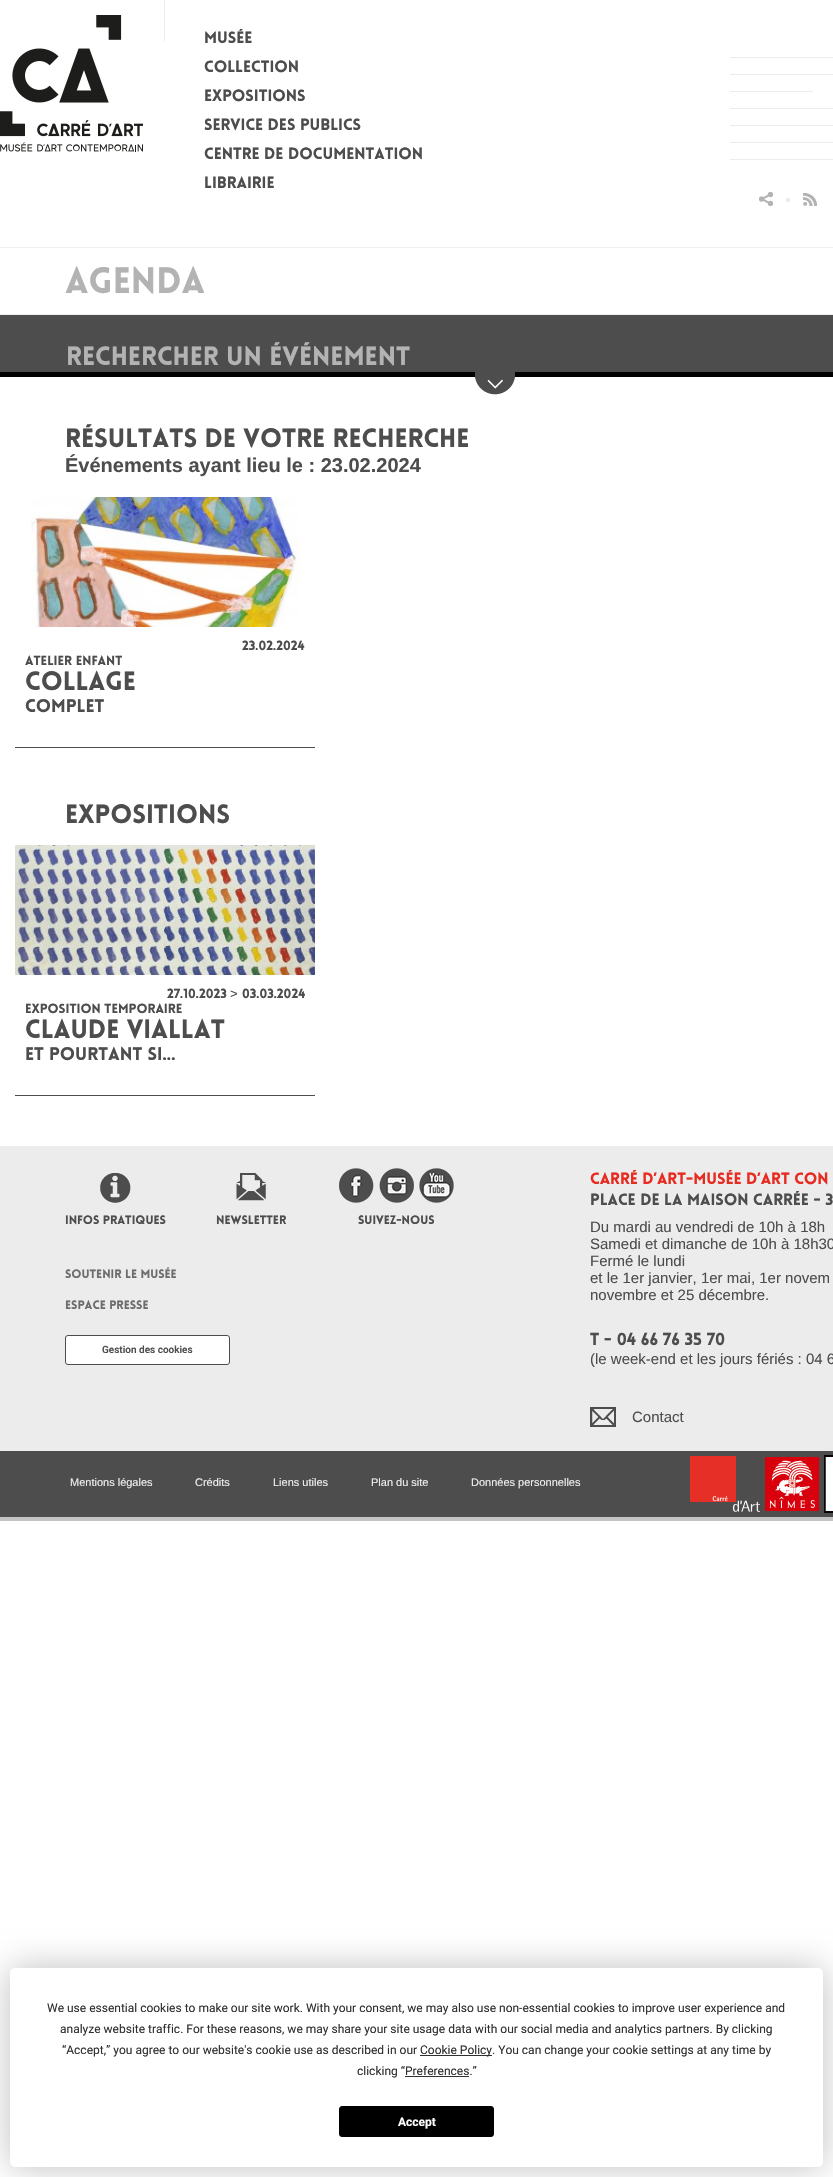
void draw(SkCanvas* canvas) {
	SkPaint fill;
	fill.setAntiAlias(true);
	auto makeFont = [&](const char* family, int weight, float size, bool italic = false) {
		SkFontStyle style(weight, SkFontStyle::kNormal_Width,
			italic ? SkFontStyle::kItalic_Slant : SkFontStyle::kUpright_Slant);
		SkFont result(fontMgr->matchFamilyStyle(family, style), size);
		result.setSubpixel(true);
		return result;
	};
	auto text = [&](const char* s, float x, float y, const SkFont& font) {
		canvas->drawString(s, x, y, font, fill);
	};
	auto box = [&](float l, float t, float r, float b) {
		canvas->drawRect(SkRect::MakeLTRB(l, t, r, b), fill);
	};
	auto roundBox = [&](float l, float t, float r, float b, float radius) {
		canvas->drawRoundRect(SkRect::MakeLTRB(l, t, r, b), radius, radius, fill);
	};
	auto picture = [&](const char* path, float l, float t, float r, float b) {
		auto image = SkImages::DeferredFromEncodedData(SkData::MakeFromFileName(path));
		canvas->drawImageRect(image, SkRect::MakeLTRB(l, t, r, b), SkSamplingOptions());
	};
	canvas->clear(0xFFFFFFFF);
	fill.setColor(0xFFF0F0F0);
	box(0, 247, 833, 248);
	picture("image0.png", 0, 15, 143, 152);
	fill.setColor(0xFFECECEC);
	box(164, 0, 165, 41);
	box(730, 57, 833, 58);
	box(730, 74, 833, 75);
	box(730, 91, 813, 92);
	box(730, 108, 833, 109);
	box(730, 125, 833, 126);
	box(730, 142, 833, 143);
	box(730, 159, 833, 160);
	picture("image1.png", 759, 192, 773, 206);
	box(786, 198, 790, 202);
	picture("image2.png", 803, 193, 817, 206);
	fill.setColor(0xFFF0F0F0);
	box(0, 314, 833, 315);
	fill.setColor(0xFF4D4D4D);
	box(0, 315, 833, 372);
	fill.setColor(0xFF000000);
	box(0, 372, 833, 377);
	picture("image3.png", 475, 372, 515, 395);
	fill.setColor(0xFF4D4D4D);
	box(15, 747, 315, 748);
	picture("image4.png", 30, 497, 300, 627);
	box(15, 1095, 315, 1096);
	picture("image5.png", 15, 845, 315, 975);
	fill.setColor(0xFFECECEC);
	box(0, 1146, 833, 1451);
	picture("image6.png", 100, 1173, 131, 1203);
	picture("image7.png", 236, 1173, 266, 1201);
	picture("image8.png", 339, 1168, 374, 1203);
	picture("image9.png", 379, 1168, 414, 1203);
	picture("image10.png", 419, 1168, 454, 1203);
	picture("image11.png", 590, 1407, 616, 1427);
	fill.setColor(0xFFFFFFFF);
	canvas->drawRoundRect(SkRect::MakeLTRB(65.5f, 1335.5f, 229.5f, 1364.5f), 2.5f, 2.5f, fill);
	fill.setStyle(SkPaint::kStroke_Style);
	fill.setStrokeWidth(1);
	fill.setColor(0xFF4D4D4D);
	canvas->drawRoundRect(SkRect::MakeLTRB(65.5f, 1335.5f, 229.5f, 1364.5f), 2.5f, 2.5f, fill);
	fill.setStyle(SkPaint::kFill_Style);
	box(0, 1451, 833, 1517);
	picture("image12.png", 690, 1456, 760, 1512);
	picture("image13.png", 765, 1457, 819, 1511);
	picture("image14.png", 824, 1455, 833, 1513);
	fill.setColor(0xFFC4C4C4);
	box(0, 1517, 833, 1521);
	fill.setColor(0x40000000);
	fill.setMaskFilter(SkMaskFilter::MakeBlur(kNormal_SkBlurStyle, 17.5f));
	canvas->drawRoundRect(SkRect::MakeLTRB(10, 1968, 823, 2167), 5, 5, fill);
	fill.setMaskFilter(nullptr);
	fill.setColor(0xFFFFFFFF);
	roundBox(10, 1968, 823, 2167, 5);
	fill.setColor(0xFF303030);
	box(420, 2055, 492, 2056);
	box(405, 2076, 469, 2077);
	fill.setColor(0xFF000000);
	canvas->drawRoundRect(SkRect::MakeLTRB(339.5f, 2106.5f, 493.5f, 2136.5f), 2.5f, 2.5f, fill);
	fill.setStyle(SkPaint::kStroke_Style);
	canvas->drawRoundRect(SkRect::MakeLTRB(339.5f, 2106.5f, 493.5f, 2136.5f), 2.5f, 2.5f, fill);
	auto font1 = makeFont("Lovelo", 900, 16);
	fill.setStyle(SkPaint::kFill_Style);
	fill.setColor(0xFF4D4D4D);
	text("MUSÉE", 204, 43, font1);
	text("COLLECTION", 204, 72, font1);
	text("EXPOSITIONS", 204, 101, font1);
	text("SERVICE DES PUBLICS", 204, 130, font1);
	text("CENTRE DE DOCUMENTATION", 204, 159, font1);
	text("LIBRAIRIE", 204, 188, font1);
	auto font2 = makeFont("Lovelo", 900, 36);
	fill.setColor(0xFFB3B3B3);
	text("AGENDA", 65, 293, font2);
	auto font3 = makeFont("Lovelo", 900, 26);
	text("RECHERCHER UN ÉVÉNEMENT", 66, 365, font3);
	fill.setColor(0xFF4D4D4D);
	text("RÉSULTATS DE VOTRE RECHERCHE", 65, 447, font3);
	auto font4 = makeFont("Liberation Sans", 700, 20);
	text("Événements ayant lieu le : 23.02.2024", 65, 472, font4);
	auto font5 = makeFont("Lovelo", 900, 13);
	text("23.02.2024", 242, 650, font5);
	text("ATELIER ENFANT", 25, 665, font5);
	text("COLLAGE", 25, 690, font3);
	auto font6 = makeFont("Lovelo", 900, 18);
	text("COMPLET", 25, 712, font6);
	text("EXPOSITIONS", 65, 823, font3);
	text("27.10.2023", 167, 998, font5);
	auto font7 = makeFont("Liberation Sans", 400, 13);
	text(">", 230, 998, font7);
	text("03.03.2024", 242, 998, font5);
	text("EXPOSITION TEMPORAIRE", 25, 1013, font5);
	text("CLAUDE VIALLAT", 25, 1038, font3);
	text("ET POURTANT SI...", 25, 1060, font6);
	auto font8 = makeFont("Lovelo", 900, 12);
	text("INFOS PRATIQUES", 65, 1224, font8);
	text("NEWSLETTER", 216, 1224, font8);
	text("SUIVEZ-NOUS", 358, 1224, font8);
	fill.setColor(0xFF6D6D6D);
	text("SOUTENIR LE MUSÉE", 65, 1278, font8);
	text("ESPACE PRESSE", 65, 1309, font8);
	fill.setColor(0xFFE72B20);
	text("CARRÉ D’ART-MUSÉE D’ART CON", 590, 1184, font1);
	fill.setColor(0xFF4D4D4D);
	text("PLACE DE LA MAISON CARRÉE - 3", 590, 1205, font1);
	auto font9 = makeFont("Liberation Sans", 400, 15);
	text("Du mardi au vendredi de 10h à 18h", 590, 1232, font9);
	text("Samedi et dimanche de 10h à 18h30", 590, 1249, font9);
	text("Fermé le lundi", 590, 1266, font9);
	text("et le 1er janvier, 1er mai, 1er novem", 590, 1283, font9);
	text("novembre et 25 décembre.", 590, 1300, font9);
	auto font10 = makeFont("Lovelo", 900, 17);
	text("T - 04 66 76 35 70", 590, 1345, font10);
	text("(le week-end et les jours fériés : 04 6", 590, 1364, font9);
	text("Contact", 632, 1422, font9);
	auto font11 = makeFont("Roboto", 600, 10);
	text("Gestion des cookies", 102, 1353, font11);
	auto font12 = makeFont("Liberation Sans", 400, 11);
	fill.setColor(0xFFEEEEEE);
	text("Mentions légales", 70, 1486, font12);
	text("Crédits", 195, 1486, font12);
	text("Liens utiles", 273, 1486, font12);
	text("Plan du site", 371, 1486, font12);
	text("Données personnelles", 471, 1486, font12);
	auto font13 = makeFont("Roboto", 400, 12);
	fill.setColor(0xFF303030);
	text("We use essential cookies to make our site work. With your consent, we may also use non-essential cookies to improve user experience and", 47, 2012, font13);
	text("analyze website traffic. For these reasons, we may share your site usage data with our social media and analytics partners. By clicking", 60, 2033, font13);
	text("“Accept,” you agree to our website's cookie use as described in our", 62, 2054, font13);
	text("Cookie Policy. You can change your cookie settings at any time by", 420, 2054, font13);
	text("clicking “Preferences.”", 357, 2075, font13);
	auto font14 = makeFont("Roboto", 700, 12);
	fill.setColor(0xFFFFFFFF);
	text("Accept", 398, 2126, font14);
}
